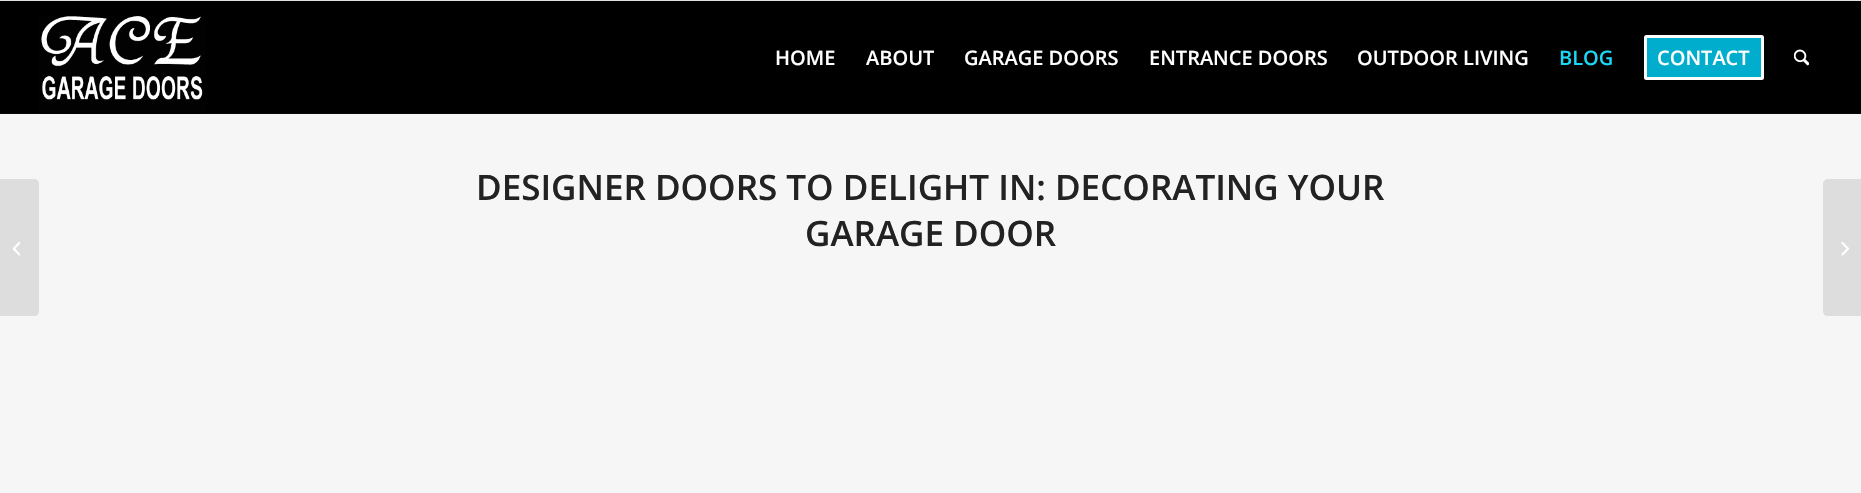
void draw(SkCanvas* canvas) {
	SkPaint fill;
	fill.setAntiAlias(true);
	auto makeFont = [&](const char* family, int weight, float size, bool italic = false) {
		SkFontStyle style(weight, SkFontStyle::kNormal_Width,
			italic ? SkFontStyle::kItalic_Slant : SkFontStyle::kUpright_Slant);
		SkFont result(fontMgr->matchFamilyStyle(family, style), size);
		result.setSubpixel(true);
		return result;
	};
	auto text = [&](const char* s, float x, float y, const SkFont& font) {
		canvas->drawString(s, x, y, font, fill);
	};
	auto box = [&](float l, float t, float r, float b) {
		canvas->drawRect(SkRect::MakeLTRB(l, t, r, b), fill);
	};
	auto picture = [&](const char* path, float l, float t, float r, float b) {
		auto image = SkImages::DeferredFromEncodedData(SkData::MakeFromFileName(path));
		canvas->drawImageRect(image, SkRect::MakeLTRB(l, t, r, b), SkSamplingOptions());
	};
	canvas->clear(0xFF000000);
	fill.setColor(0xFFE1E1E1);
	box(0, 0, 1861, 1);
	fill.setColor(0xFF0B0B0B);
	box(0, 113, 1861, 114);
	picture("image0.png", 38, 16, 206, 114);
	fill.setColor(0xFF00ADCC);
	canvas->drawRoundRect(SkRect::MakeLTRB(1645.5f, 36.5f, 1762.5f, 78.5f), 1, 1, fill);
	fill.setStyle(SkPaint::kStroke_Style);
	fill.setStrokeWidth(3);
	fill.setColor(0xFFFFFFFF);
	canvas->drawRoundRect(SkRect::MakeLTRB(1645.5f, 36.5f, 1762.5f, 78.5f), 1, 1, fill);
	picture("image1.png", 1794, 49, 1809, 66);
	fill.setStyle(SkPaint::kFill_Style);
	fill.setColor(0xFFF6F6F6);
	box(0, 114, 1861, 493);
	fill.setColor(0xFFDDDDDD);
	canvas->drawPath(SkPathBuilder().moveTo(0, 179).lineTo(34, 179).cubicTo(37, 179, 39, 181, 39, 184).lineTo(39, 311).cubicTo(39, 314, 37, 316, 34, 316).lineTo(0, 316).close().detach(), fill);
	picture("image2.png", 13, 241, 20, 256);
	canvas->drawPath(SkPathBuilder().moveTo(1828, 179).lineTo(1861, 179).lineTo(1861, 316).lineTo(1828, 316).cubicTo(1825, 316, 1823, 314, 1823, 311).lineTo(1823, 184).cubicTo(1823, 181, 1825, 179, 1828, 179).close().detach(), fill);
	picture("image3.png", 1841, 241, 1849, 256);
	auto font1 = makeFont("Open Sans", 600, 20);
	fill.setColor(0xFFFFFFFF);
	text("HOME", 775, 65, font1);
	text("ABOUT", 866, 65, font1);
	text("GARAGE DOORS", 964, 65, font1);
	text("ENTRANCE DOORS", 1149, 65, font1);
	text("OUTDOOR LIVING", 1357, 65, font1);
	fill.setColor(0xFF1BD6F7);
	text("BLOG", 1559, 65, font1);
	fill.setColor(0xFFFFFFFF);
	text("CONTACT", 1657, 65, font1);
	auto font2 = makeFont("Open Sans", 600, 35);
	fill.setColor(0xFF222222);
	text("DESIGNER DOORS TO DELIGHT IN: DECORATING YOUR", 476, 200, font2);
	text("GARAGE DOOR", 805, 246, font2);
}
